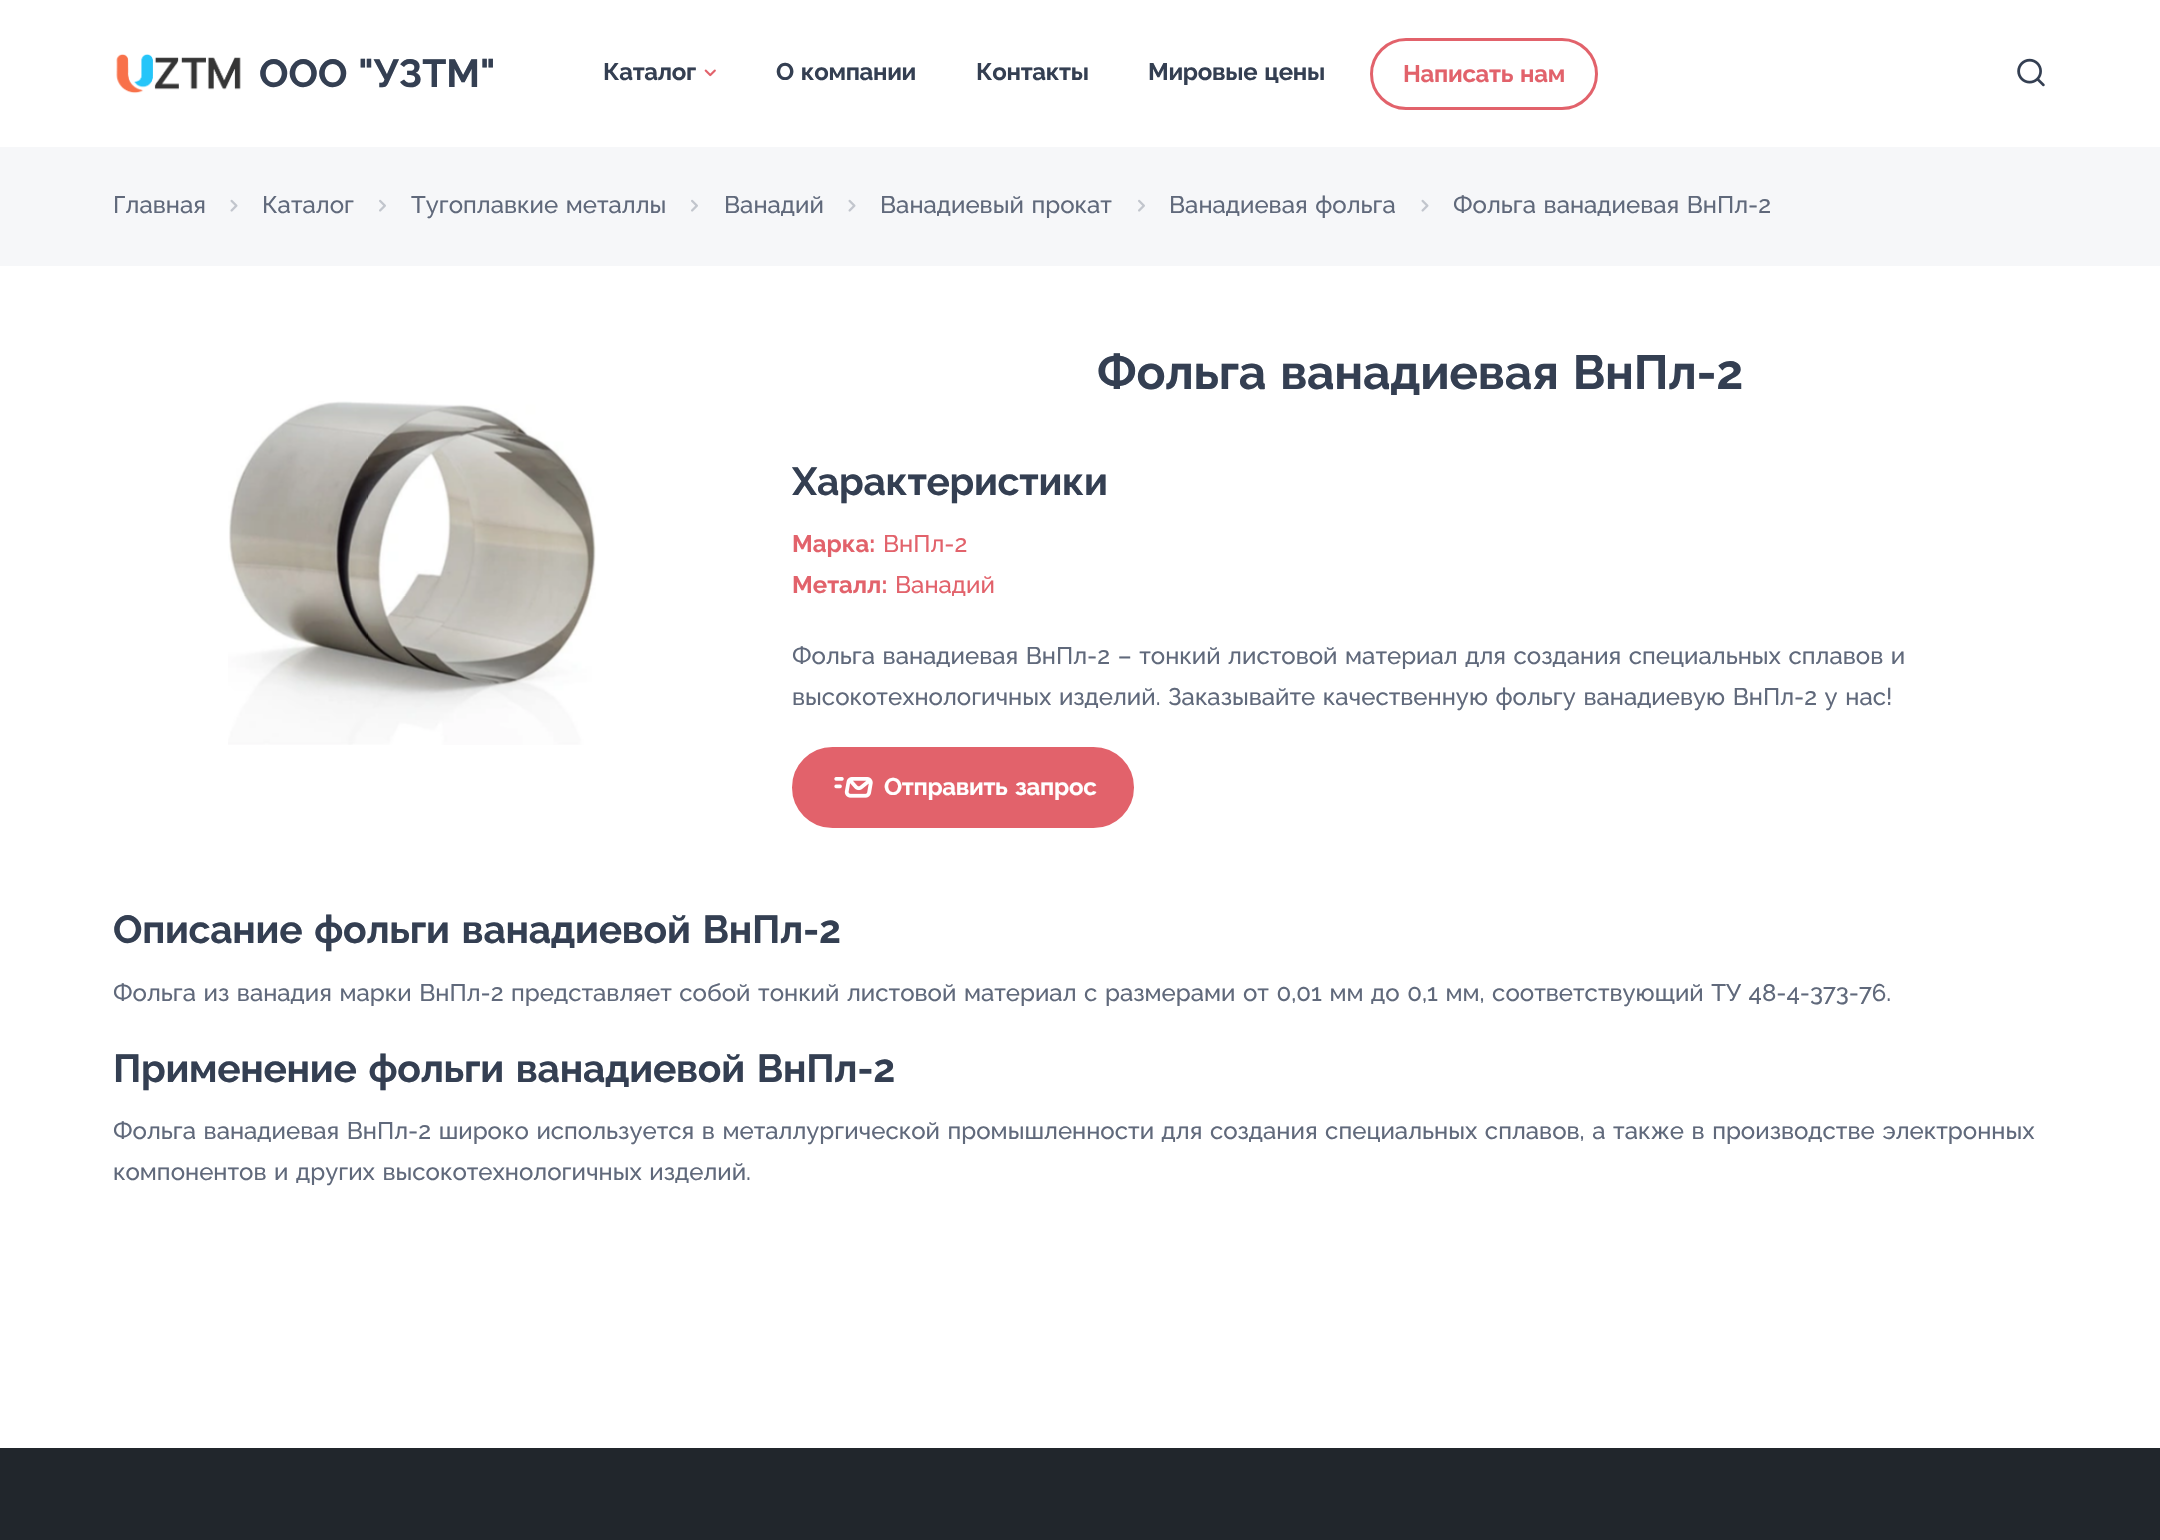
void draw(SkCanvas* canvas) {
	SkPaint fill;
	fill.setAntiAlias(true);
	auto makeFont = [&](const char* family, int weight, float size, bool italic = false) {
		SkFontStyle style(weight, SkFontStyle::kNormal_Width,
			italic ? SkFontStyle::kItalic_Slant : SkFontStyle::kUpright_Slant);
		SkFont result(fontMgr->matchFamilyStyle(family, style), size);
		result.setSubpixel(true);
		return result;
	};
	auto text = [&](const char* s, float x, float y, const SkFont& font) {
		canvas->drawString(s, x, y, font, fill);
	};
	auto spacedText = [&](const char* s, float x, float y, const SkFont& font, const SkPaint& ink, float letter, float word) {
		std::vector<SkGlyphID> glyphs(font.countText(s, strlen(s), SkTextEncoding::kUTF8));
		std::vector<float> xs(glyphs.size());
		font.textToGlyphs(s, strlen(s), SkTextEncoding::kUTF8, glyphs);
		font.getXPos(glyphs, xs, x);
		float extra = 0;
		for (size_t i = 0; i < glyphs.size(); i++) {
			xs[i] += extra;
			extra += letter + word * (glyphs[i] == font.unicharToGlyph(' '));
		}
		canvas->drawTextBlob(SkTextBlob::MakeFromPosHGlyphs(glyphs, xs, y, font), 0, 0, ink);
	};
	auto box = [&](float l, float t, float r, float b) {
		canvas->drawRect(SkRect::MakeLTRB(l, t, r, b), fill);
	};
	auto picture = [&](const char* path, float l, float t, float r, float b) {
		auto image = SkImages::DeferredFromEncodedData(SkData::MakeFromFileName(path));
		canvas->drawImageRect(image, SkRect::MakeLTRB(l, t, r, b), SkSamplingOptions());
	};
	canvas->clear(0xFFFFFFFF);
	picture("image0.png", 116, 54, 241, 94);
	picture("image1.png", 704, 69, 716, 77);
	fill.setStyle(SkPaint::kStroke_Style);
	fill.setStrokeWidth(3);
	fill.setColor(0xFFE2626B);
	canvas->drawRoundRect(SkRect::MakeLTRB(1371.5f, 39.5f, 1596.5f, 108.5f), 34.5f, 34.5f, fill);
	picture("image2.png", 2017, 58, 2045, 87);
	fill.setStyle(SkPaint::kFill_Style);
	fill.setColor(0xFFF6F7F9);
	box(0, 147, 2160, 266);
	picture("image3.png", 230, 199, 238, 212);
	picture("image4.png", 379, 199, 386, 212);
	picture("image4.png", 691, 199, 698, 212);
	picture("image3.png", 848, 199, 856, 212);
	picture("image4.png", 1138, 199, 1145, 212);
	picture("image3.png", 1421, 199, 1429, 212);
	picture("image5.png", 228, 401, 596, 745);
	fill.setColor(0xFFE2626B);
	canvas->drawRoundRect(SkRect::MakeLTRB(793.5f, 748.5f, 1132.5f, 826.5f), 39, 39, fill);
	fill.setStyle(SkPaint::kStroke_Style);
	canvas->drawRoundRect(SkRect::MakeLTRB(793.5f, 748.5f, 1132.5f, 826.5f), 39, 39, fill);
	picture("image6.png", 834, 777, 873, 798);
	fill.setStyle(SkPaint::kFill_Style);
	fill.setColor(0xFF21262C);
	box(0, 1448, 2160, 1540);
	auto font1 = makeFont("Raleway", 700, 39);
	fill.setColor(0xFF343F52);
	spacedText("ООО \"УЗТМ\"", 259, 87, font1, fill, 0, 1.5f);
	auto font2 = makeFont("Raleway", 700, 24);
	spacedText("Каталог", 603, 80, font2, fill, -0.3f, 0);
	spacedText("О компании", 776, 80, font2, fill, -0.3f, 1.5f);
	spacedText("Контакты", 976, 80, font2, fill, -0.3f, 0);
	spacedText("Мировые цены", 1148, 80, font2, fill, -0.3f, 1.5f);
	fill.setColor(0xFFE2626B);
	spacedText("Написать нам", 1403, 82, font2, fill, -0.3f, 1.5f);
	auto font3 = makeFont("Raleway", 500, 24);
	fill.setColor(0xFF60697B);
	text("Главная", 113, 213, font3);
	text("Каталог", 262, 213, font3);
	spacedText("Тугоплавкие металлы", 411, 213, font3, fill, 0, 1.5f);
	text("Ванадий", 724, 213, font3);
	spacedText("Ванадиевый прокат", 880, 213, font3, fill, 0, 1.5f);
	spacedText("Ванадиевая фольга", 1169, 213, font3, fill, 0, 1.5f);
	spacedText("Фольга ванадиевая ВнПл-2", 1453, 213, font3, fill, 0, 1.5f);
	auto font4 = makeFont("Raleway", 700, 48);
	fill.setColor(0xFF343F52);
	spacedText("Фольга ванадиевая ВнПл-2", 1097, 389, font4, fill, -0.3f, 3);
	spacedText("Xарактеристики", 792, 495, font1, fill, -0.3f, 0);
	fill.setColor(0xFFE2626B);
	text("Марка:", 792, 552, font2);
	text("ВнПл-2", 883, 552, font3);
	text("Металл:", 792, 593, font2);
	text("Ванадий", 895, 593, font3);
	fill.setColor(0xFF60697B);
	spacedText("Фольга ванадиевая ВнПл-2 – тонкий листовой материал для создания специальных сплавов и", 792, 664, font3, fill, 0, 1.5f);
	spacedText("высокотехнологичных изделий. Заказывайте качественную фольгу ванадиевую ВнПл-2 у нас!", 792, 705, font3, fill, 0, 1.5f);
	fill.setColor(0xFFFFFFFF);
	spacedText("Отправить запрос", 884, 795, font2, fill, -0.3f, 2);
	fill.setColor(0xFF343F52);
	spacedText("Описание фольги ванадиевой ВнПл-2", 113, 943, font1, fill, -0.3f, 3);
	fill.setColor(0xFF60697B);
	spacedText("Фольга из ванадия марки ВнПл-2 представляет собой тонкий листовой материал с размерами от 0,01 мм до 0,1 мм, соответствующий ТУ 48-4-373-76.", 113, 1001, font3, fill, 0, 1.5f);
	fill.setColor(0xFF343F52);
	spacedText("Применение фольги ванадиевой ВнПл-2", 113, 1082, font1, fill, -0.3f, 3);
	fill.setColor(0xFF60697B);
	spacedText("Фольга ванадиевая ВнПл-2 широко используется в металлургической промышленности для создания специальных сплавов, а также в производстве электронных", 113, 1139, font3, fill, 0, 1.5f);
	spacedText("компонентов и других высокотехнологичных изделий.", 113, 1180, font3, fill, 0, 1.5f);
}
